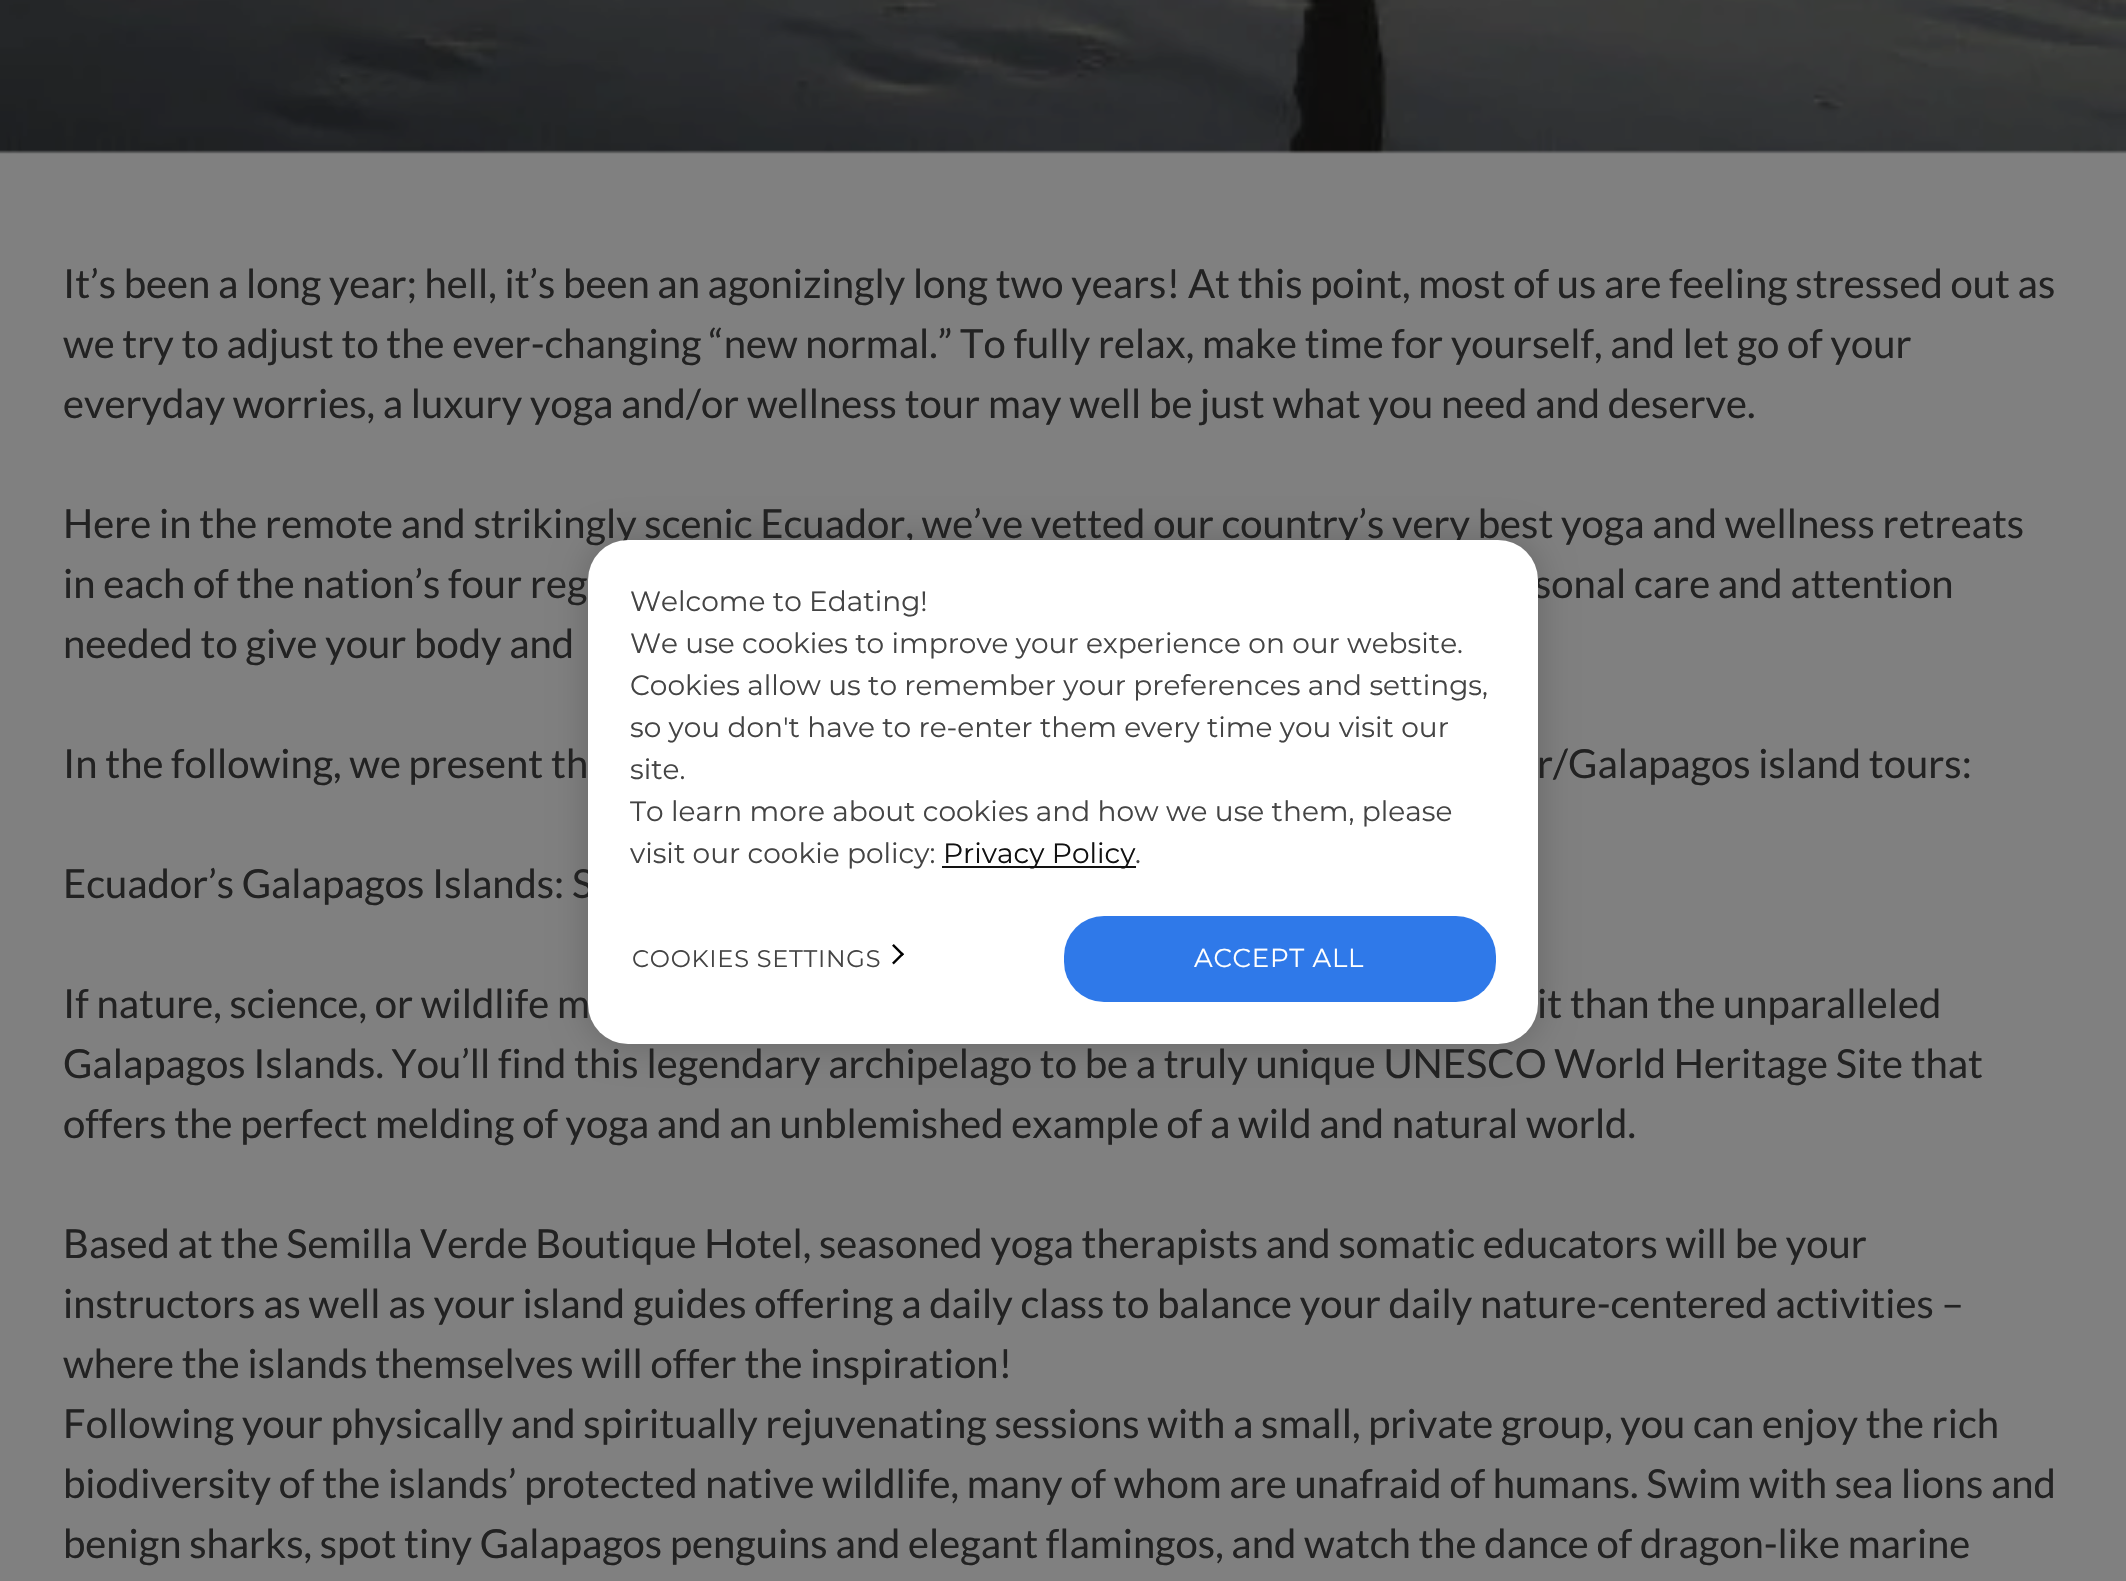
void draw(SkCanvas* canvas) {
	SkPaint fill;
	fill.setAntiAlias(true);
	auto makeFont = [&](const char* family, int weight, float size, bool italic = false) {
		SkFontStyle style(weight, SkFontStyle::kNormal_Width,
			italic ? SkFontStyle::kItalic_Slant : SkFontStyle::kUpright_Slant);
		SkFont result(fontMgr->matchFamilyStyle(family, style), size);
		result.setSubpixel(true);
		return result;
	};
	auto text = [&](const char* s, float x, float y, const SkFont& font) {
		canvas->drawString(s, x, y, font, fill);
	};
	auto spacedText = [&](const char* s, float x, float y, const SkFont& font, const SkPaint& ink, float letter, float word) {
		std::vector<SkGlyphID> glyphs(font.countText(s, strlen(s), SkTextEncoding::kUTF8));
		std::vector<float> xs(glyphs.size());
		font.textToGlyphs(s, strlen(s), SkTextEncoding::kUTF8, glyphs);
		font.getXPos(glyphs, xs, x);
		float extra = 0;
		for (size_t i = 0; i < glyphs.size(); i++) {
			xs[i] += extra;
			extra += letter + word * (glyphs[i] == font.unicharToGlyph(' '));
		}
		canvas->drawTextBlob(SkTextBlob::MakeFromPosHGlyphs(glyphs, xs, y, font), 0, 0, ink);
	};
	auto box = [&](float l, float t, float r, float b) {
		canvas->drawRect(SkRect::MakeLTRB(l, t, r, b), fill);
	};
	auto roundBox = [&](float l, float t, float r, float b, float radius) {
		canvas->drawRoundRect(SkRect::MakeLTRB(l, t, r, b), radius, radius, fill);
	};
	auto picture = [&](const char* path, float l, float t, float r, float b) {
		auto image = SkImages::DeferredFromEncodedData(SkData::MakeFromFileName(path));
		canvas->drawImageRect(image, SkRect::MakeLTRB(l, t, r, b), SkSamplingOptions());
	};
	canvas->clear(0xFF808080);
	picture("image0.png", 0, 0, 2126, 154);
	fill.setColor(0x33000000);
	fill.setMaskFilter(SkMaskFilter::MakeBlur(kNormal_SkBlurStyle, 18));
	canvas->drawRoundRect(SkRect::MakeLTRB(588, 540, 1538, 1044), 40, 40, fill);
	fill.setMaskFilter(nullptr);
	auto font1 = makeFont("Lato", 400, 40);
	fill.setColor(0xFF222222);
	text("It’s been a long year; hell, it’s been an agonizingly long two years! At this point, most of us are feeling stressed out as", 63, 298, font1);
	text("we try to adjust to the ever-changing “new normal.” To fully relax, make time for yourself, and let go of your", 63, 358, font1);
	text("everyday worries, a luxury yoga and/or wellness tour may well be just what you need and deserve.", 63, 418, font1);
	text("Here in the remote and strikingly scenic Ecuador, we’ve vetted our country’s very best yoga and wellness retreats", 63, 538, font1);
	text("in each of the nation’s four reg", 63, 598, font1);
	text("sonal care and attention", 1534, 598, font1);
	text("needed to give your body and", 63, 658, font1);
	text("In the following, we present th", 63, 778, font1);
	text("r/Galapagos island tours:", 1537, 778, font1);
	text("Ecuador’s Galapagos Islands: S", 63, 898, font1);
	text("If nature, science, or wildlife m", 63, 1018, font1);
	text("it than the unparalleled", 1537, 1018, font1);
	text("Galapagos Islands. You’ll find this legendary archipelago to be a truly unique UNESCO World Heritage Site that", 63, 1078, font1);
	text("offers the perfect melding of yoga and an unblemished example of a wild and natural world.", 63, 1138, font1);
	text("Based at the Semilla Verde Boutique Hotel, seasoned yoga therapists and somatic educators will be your", 63, 1258, font1);
	text("instructors as well as your island guides offering a daily class to balance your daily nature-centered activities –", 63, 1318, font1);
	text("where the islands themselves will offer the inspiration!", 63, 1378, font1);
	text("Following your physically and spiritually rejuvenating sessions with a small, private group, you can enjoy the rich", 63, 1438, font1);
	text("biodiversity of the islands’ protected native wildlife, many of whom are unafraid of humans. Swim with sea lions and", 63, 1498, font1);
	text("benign sharks, spot tiny Galapagos penguins and elegant flamingos, and watch the dance of dragon-like marine", 63, 1558, font1);
	fill.setColor(0xFFFFFFFF);
	roundBox(588, 540, 1538, 1044, 40);
	auto font2 = makeFont("Montserrat", 400, 28);
	fill.setColor(0xFF444444);
	text("Welcome to Edating!", 630, 611, font2);
	text("We use cookies to improve your experience on our website.", 630, 653, font2);
	text("Cookies allow us to remember your preferences and settings,", 630, 695, font2);
	text("so you don't have to re-enter them every time you visit our", 630, 737, font2);
	text("site.", 630, 779, font2);
	text("To learn more about cookies and how we use them, please", 630, 821, font2);
	text("visit our cookie policy:", 630, 863, font2);
	fill.setColor(0xFF121212);
	box(942, 866, 1136, 868);
	text("Privacy Policy", 943, 863, font2);
	fill.setColor(0xFF444444);
	text(".", 1135, 863, font2);
	auto font3 = makeFont("Montserrat", 400, 24);
	spacedText("COOKIES SETTINGS", 632, 967, font3, fill, 0.75f, 0);
	picture("image1.png", 892, 944, 904, 965);
	fill.setColor(0xFF2F79E9);
	roundBox(1064, 916, 1496, 1002, 40);
	auto font4 = makeFont("Montserrat", 400, 26);
	fill.setColor(0xFFFFFFFF);
	spacedText("ACCEPT ALL", 1194, 967, font4, fill, 0.75f, 0);
}
